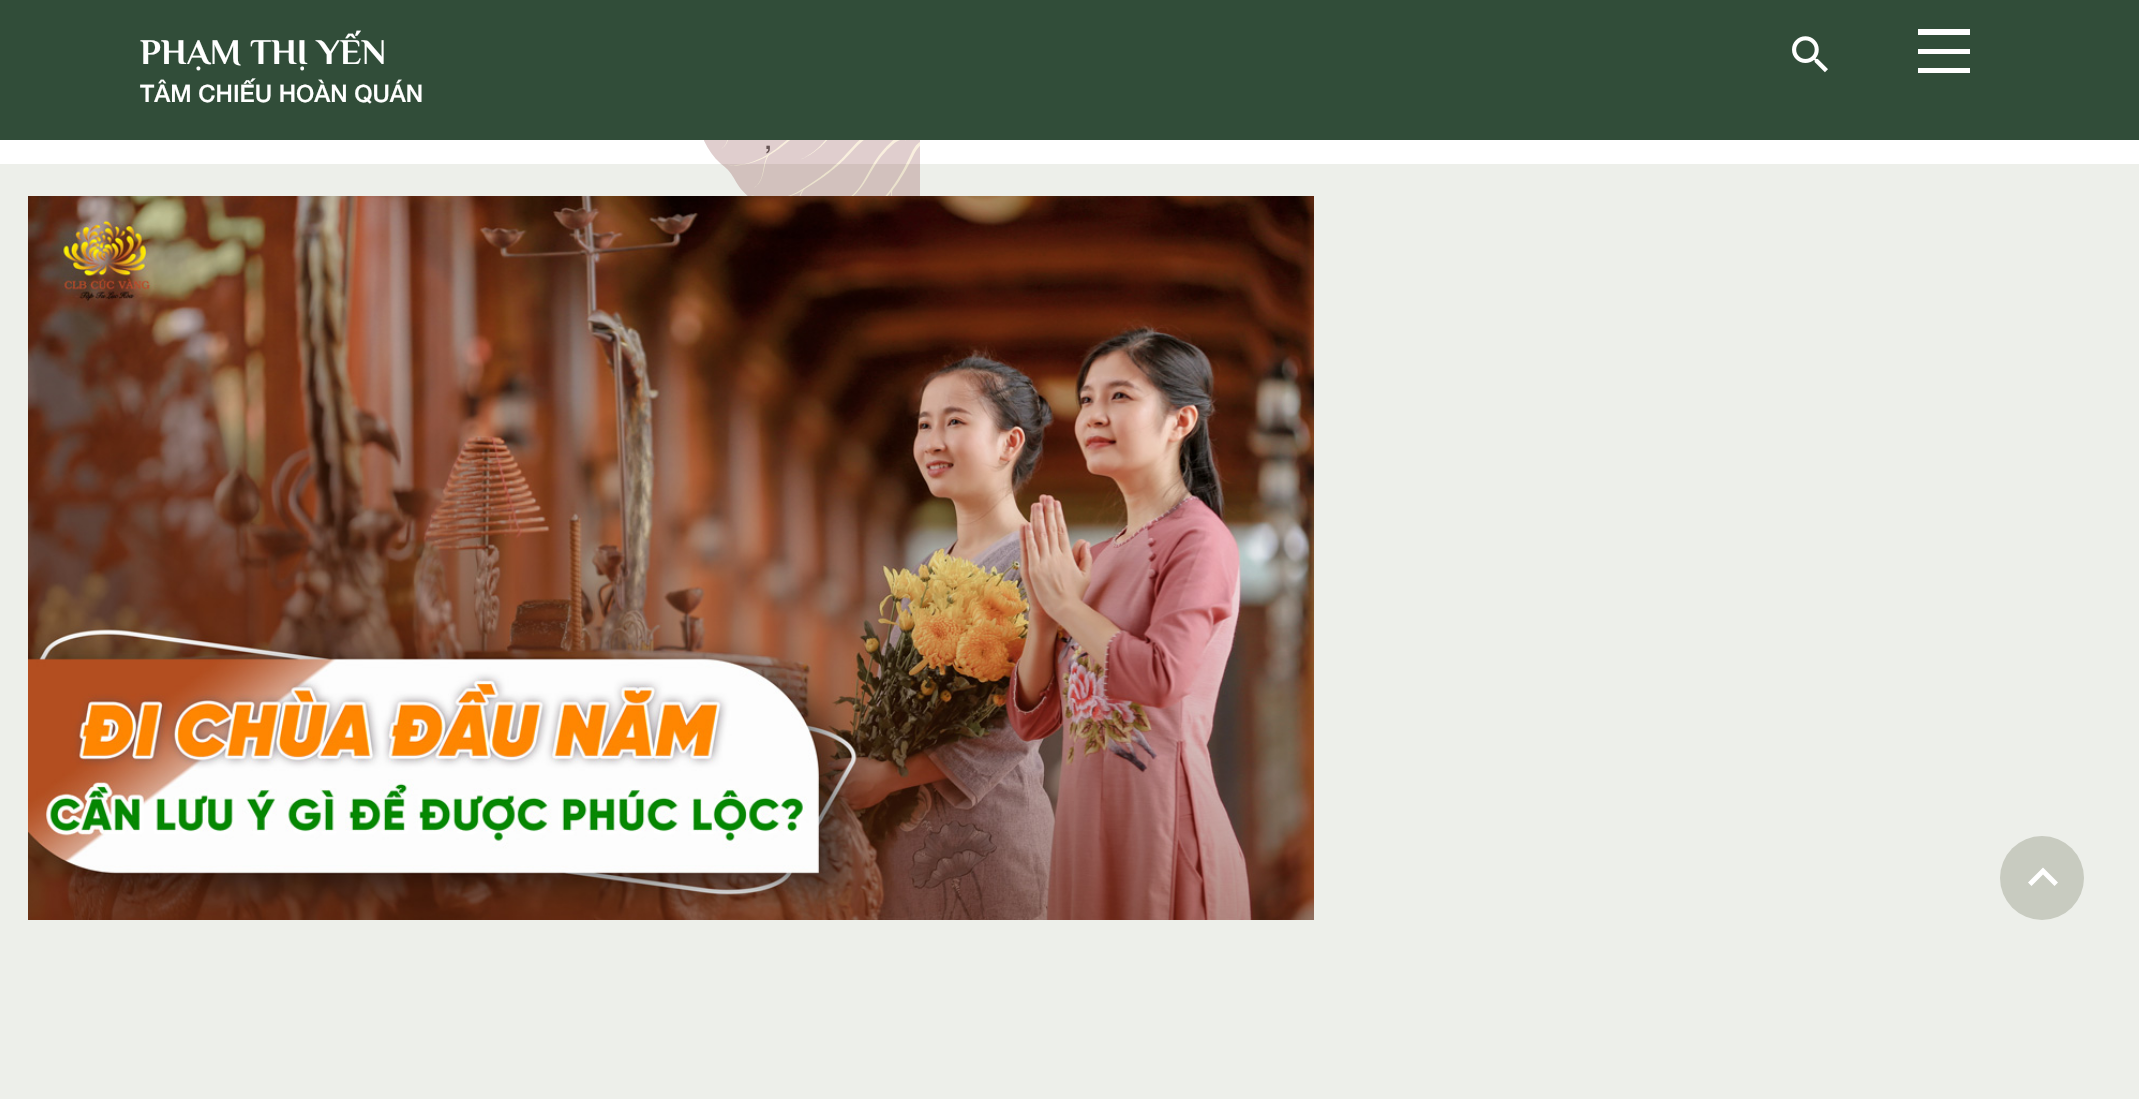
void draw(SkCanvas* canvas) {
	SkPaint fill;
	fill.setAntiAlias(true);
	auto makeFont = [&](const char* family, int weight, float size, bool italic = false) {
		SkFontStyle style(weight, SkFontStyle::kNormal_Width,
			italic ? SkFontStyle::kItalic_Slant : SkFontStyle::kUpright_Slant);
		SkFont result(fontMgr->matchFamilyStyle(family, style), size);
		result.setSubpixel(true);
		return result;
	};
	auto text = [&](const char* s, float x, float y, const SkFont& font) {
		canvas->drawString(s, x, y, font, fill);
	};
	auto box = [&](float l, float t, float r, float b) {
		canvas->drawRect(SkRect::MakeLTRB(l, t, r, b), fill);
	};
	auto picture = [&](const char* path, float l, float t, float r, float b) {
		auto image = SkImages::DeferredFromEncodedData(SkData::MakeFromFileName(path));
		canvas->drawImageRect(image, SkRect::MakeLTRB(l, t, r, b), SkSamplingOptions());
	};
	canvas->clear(0xFFEDEFEA);
	fill.setColor(0xFF314D39);
	box(0, 0, 2139, 140);
	picture("image0.png", 1792, 36, 1828, 73);
	fill.setColor(0xFFFFFFFF);
	canvas->drawPath(SkPathBuilder().moveTo(1918, 29).lineTo(1970, 29).lineTo(1970, 35).lineTo(1918, 35).close().moveTo(1918, 49).lineTo(1970, 49).lineTo(1970, 54).lineTo(1918, 54).close().moveTo(1918, 68).lineTo(1970, 68).lineTo(1970, 73).lineTo(1918, 73).close().detach(), fill);
	picture("image2.png", 28, 196, 1314, 920);
	box(0, 140, 2139, 164);
	fill.setColor(0xFFC8CBC0);
	canvas->drawCircle(2042, 878, 42, fill);
	fill.setColor(0xFFFFFFFF);
	canvas->drawPath(SkPathBuilder().moveTo(2028, 882.5f).lineTo(2043, 867.5f).lineTo(2058, 882.5f).lineTo(2054.5f, 886).lineTo(2043, 874.5f).lineTo(2031.5f, 886).close().detach(), fill);
	auto font1 = makeFont("Philosopher", 700, 36);
	text("PHẠM THỊ YẾN", 140, 64, font1);
	auto font2 = makeFont("Helvetica Neue", 500, 24);
	text("TÂM CHIẾU HOÀN QUÁN", 140, 102, font2);
	auto font3 = makeFont("Helvetica Neue", 400, 30);
	fill.setColor(0xFF666666);
	text(",", 764, 149, font3);
	picture("image1.png", 704, 140, 920, 196);
}
